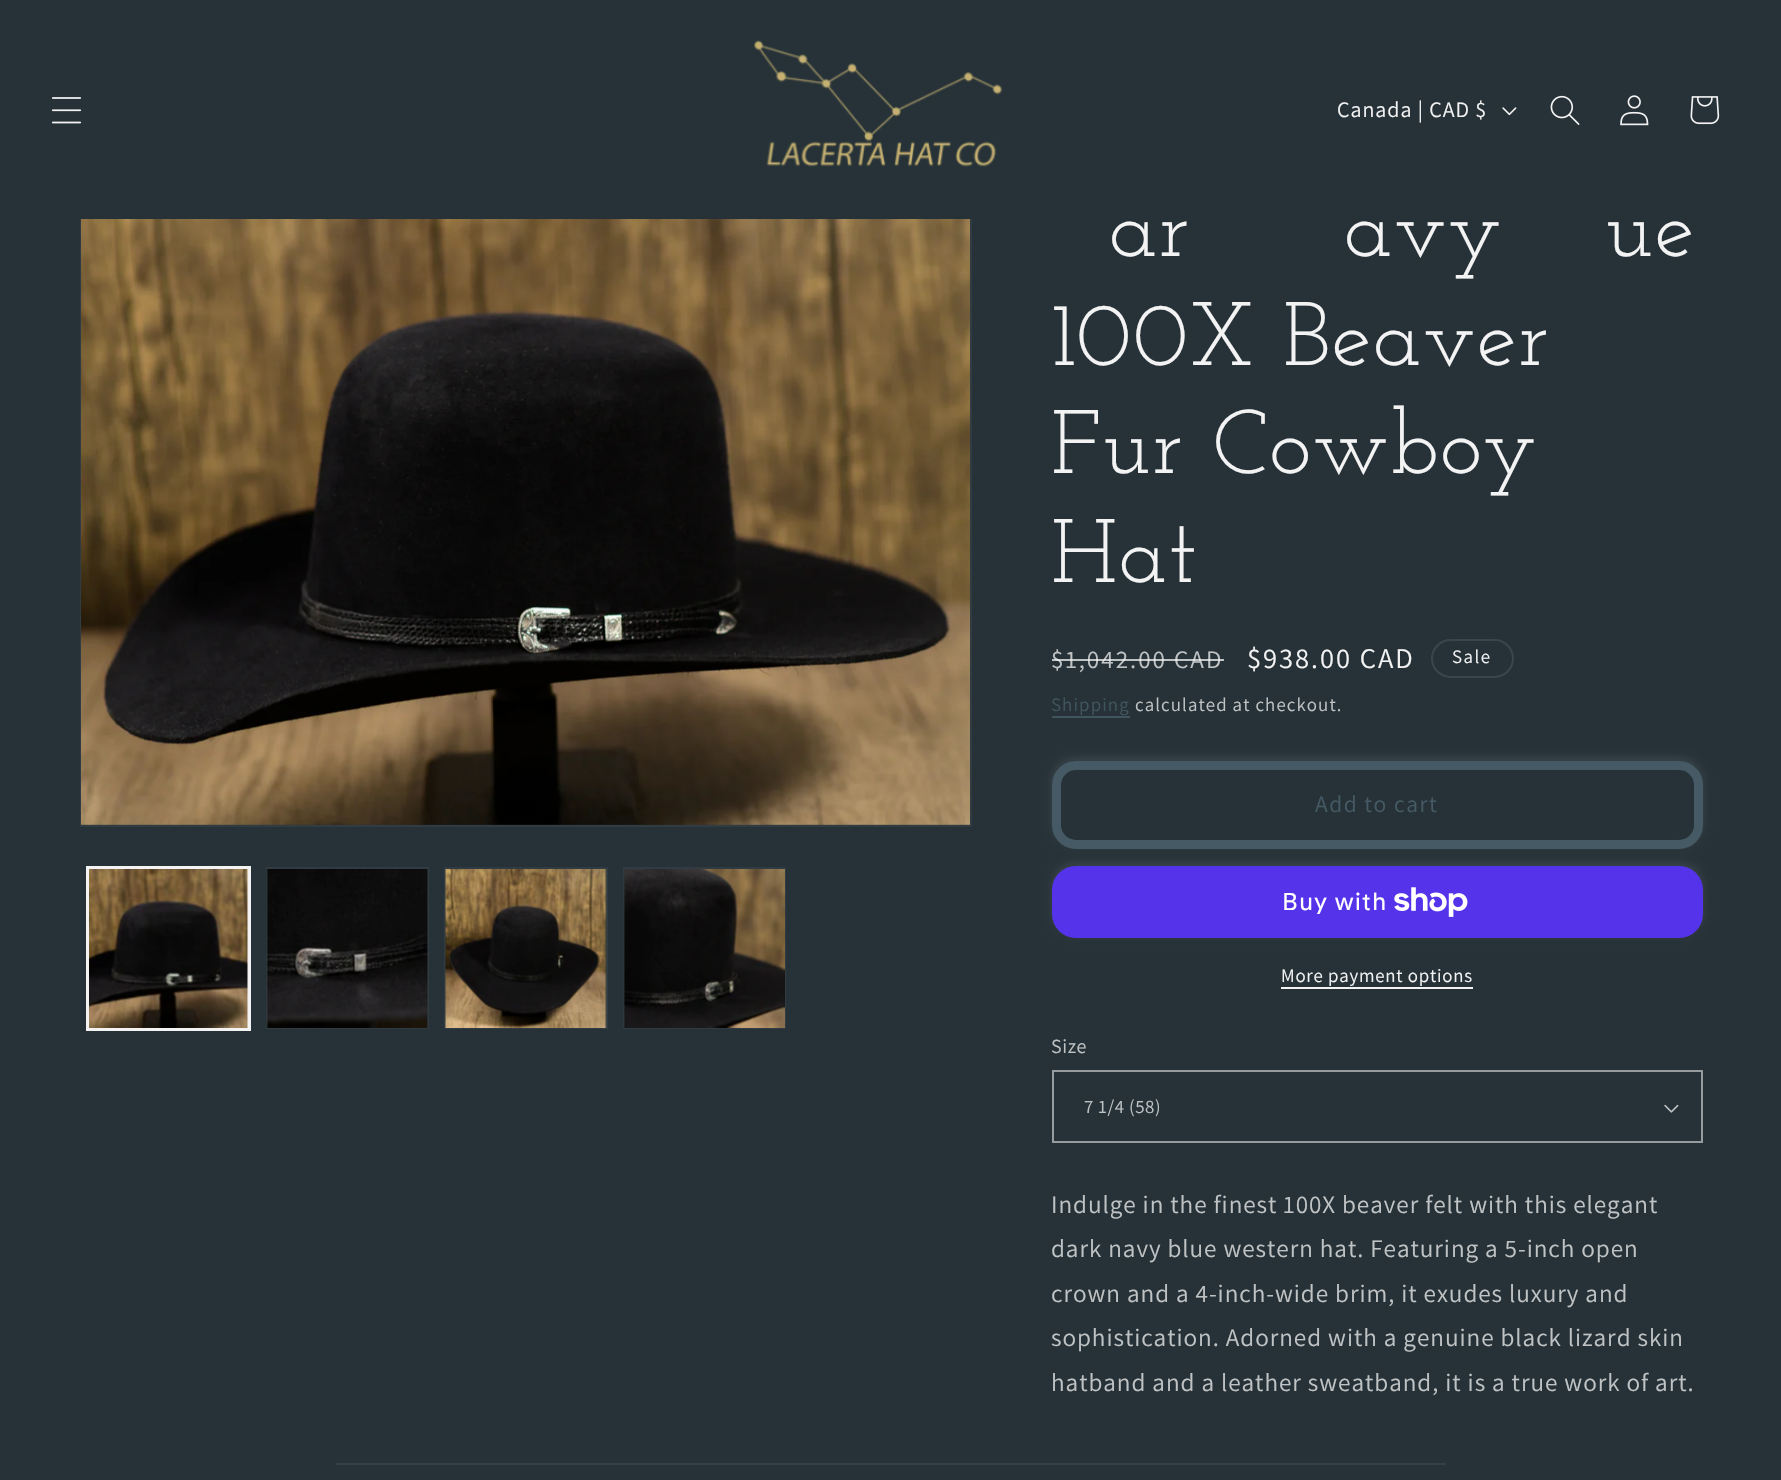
void draw(SkCanvas* canvas) {
	SkPaint fill;
	fill.setAntiAlias(true);
	auto makeFont = [&](const char* family, int weight, float size, bool italic = false) {
		SkFontStyle style(weight, SkFontStyle::kNormal_Width,
			italic ? SkFontStyle::kItalic_Slant : SkFontStyle::kUpright_Slant);
		SkFont result(fontMgr->matchFamilyStyle(family, style), size);
		result.setSubpixel(true);
		return result;
	};
	auto spacedText = [&](const char* s, float x, float y, const SkFont& font, const SkPaint& ink, float letter, float word) {
		std::vector<SkGlyphID> glyphs(font.countText(s, strlen(s), SkTextEncoding::kUTF8));
		std::vector<float> xs(glyphs.size());
		font.textToGlyphs(s, strlen(s), SkTextEncoding::kUTF8, glyphs);
		font.getXPos(glyphs, xs, x);
		float extra = 0;
		for (size_t i = 0; i < glyphs.size(); i++) {
			xs[i] += extra;
			extra += letter + word * (glyphs[i] == font.unicharToGlyph(' '));
		}
		canvas->drawTextBlob(SkTextBlob::MakeFromPosHGlyphs(glyphs, xs, y, font), 0, 0, ink);
	};
	auto box = [&](float l, float t, float r, float b) {
		canvas->drawRect(SkRect::MakeLTRB(l, t, r, b), fill);
	};
	auto roundBox = [&](float l, float t, float r, float b, float radius) {
		canvas->drawRoundRect(SkRect::MakeLTRB(l, t, r, b), radius, radius, fill);
	};
	auto picture = [&](const char* path, float l, float t, float r, float b) {
		auto image = SkImages::DeferredFromEncodedData(SkData::MakeFromFileName(path));
		canvas->drawImageRect(image, SkRect::MakeLTRB(l, t, r, b), SkSamplingOptions());
	};
	canvas->clear(0xFF263238);
	fill.setStyle(SkPaint::kStroke_Style);
	fill.setStrokeWidth(2);
	fill.setColor(0xFF303C41);
	canvas->drawRect(SkRect::MakeLTRB(81, 180, 971, 826), fill);
	fill.setStyle(SkPaint::kFill_Style);
	fill.setColor(0xFF263238);
	box(80, 179, 972, 219);
	picture("image0.png", 51, 97, 82, 124);
	picture("image1.png", 754, 40, 1003, 167);
	picture("image2.png", 1502, 107, 1517, 116);
	picture("image3.png", 1550, 95, 1580, 125);
	picture("image4.png", 1620, 95, 1649, 126);
	picture("image5.png", 1690, 96, 1720, 125);
	picture("image6.png", 81, 219, 970, 825);
	fill.setStyle(SkPaint::kStroke_Style);
	fill.setColor(0xFFF3F3F3);
	canvas->drawRect(SkRect::MakeLTRB(87, 867, 250, 1030), fill);
	canvas->drawRect(SkRect::MakeLTRB(88, 868, 248, 1028), fill);
	picture("image7.png", 89, 869, 248, 1028);
	fill.setColor(0xFF303C41);
	canvas->drawRect(SkRect::MakeLTRB(267, 868, 428, 1028), fill);
	picture("image8.png", 266, 869, 428, 1028);
	canvas->drawRect(SkRect::MakeLTRB(445, 868, 607, 1028), fill);
	picture("image9.png", 445, 869, 607, 1028);
	canvas->drawRect(SkRect::MakeLTRB(624, 868, 785, 1028), fill);
	picture("image10.png", 623, 869, 785, 1028);
	fill.setColor(0xFF3B454B);
	canvas->drawRoundRect(SkRect::MakeLTRB(1432, 640, 1513, 677), 18.5f, 18.5f, fill);
	fill.setStyle(SkPaint::kFill_Style);
	fill.setColor(0xFF40545D);
	box(1052, 716, 1130, 718);
	fill.setColor(0x1AF3F3F3);
	fill.setMaskFilter(SkMaskFilter::MakeBlur(kNormal_SkBlurStyle, 4));
	canvas->drawRoundRect(SkRect::MakeLTRB(1052, 758, 1703, 846), 24, 24, fill);
	fill.setMaskFilter(nullptr);
	fill.setColor(0xFF263238);
	roundBox(1052, 761, 1703, 849, 24);
	fill.setStyle(SkPaint::kStroke_Style);
	fill.setStrokeWidth(9);
	canvas->drawRoundRect(SkRect::MakeLTRB(1056.5f, 765.5f, 1698.5f, 844.5f), 19.5f, 19.5f, fill);
	fill.setColor(0xFF455A64);
	canvas->drawRoundRect(SkRect::MakeLTRB(1056.5f, 765.5f, 1698.5f, 844.5f), 19.5f, 19.5f, fill);
	fill.setStyle(SkPaint::kFill_Style);
	fill.setColor(0x1AF3F3F3);
	fill.setMaskFilter(SkMaskFilter::MakeBlur(kNormal_SkBlurStyle, 4));
	canvas->drawRoundRect(SkRect::MakeLTRB(1052, 863, 1703, 935), 24, 24, fill);
	fill.setMaskFilter(nullptr);
	fill.setColor(0xFF5433EB);
	roundBox(1052, 866, 1703, 938, 24);
	picture("image11.png", 1394, 887, 1468, 917);
	fill.setColor(0xFFF3F3F3);
	box(1281, 987, 1473, 989);
	picture("image12.png", 1664, 1104, 1679, 1113);
	fill.setStyle(SkPaint::kStroke_Style);
	fill.setStrokeWidth(2);
	fill.setColor(0xFF979C9F);
	canvas->drawRect(SkRect::MakeLTRB(1053, 1071, 1702, 1142), fill);
	fill.setStyle(SkPaint::kFill_Style);
	fill.setColor(0xFF364147);
	box(336, 1463, 1446, 1465);
	auto font1 = makeFont("Assistant", 400, 22);
	fill.setColor(0xFFF3F3F3);
	spacedText("Canada | CAD $", 1337, 117, font1, fill, 0.95f, 0);
	auto font2 = makeFont("Josefin Slab", 400, 90);
	spacedText("ar", 1109, 256, font2, fill, 1.4f, 0);
	spacedText("avy", 1344, 256, font2, fill, 1.4f, 0);
	spacedText("ue", 1605, 256, font2, fill, 1.4f, 0);
	spacedText("100X Beaver", 1051, 365, font2, fill, 1.4f, 0);
	spacedText("Fur Cowboy", 1051, 473, font2, fill, 1.4f, 0);
	spacedText("Hat", 1051, 582, font2, fill, 1.4f, 0);
	auto font3 = makeFont("Assistant", 400, 25.2f);
	fill.setColor(0xFFC0C3C4);
	spacedText("$1,042.00 CAD", 1051, 668, font3, fill, 2, 0);
	fill.setColor(0xBFF3F3F3);
	box(1052, 659, 1224, 661);
	auto font4 = makeFont("Assistant", 400, 28.5f);
	fill.setColor(0xFFF3F3F3);
	spacedText("$938.00 CAD", 1247, 668, font4, fill, 2, 0);
	auto font5 = makeFont("Assistant", 400, 18.9f);
	spacedText("Sale", 1452, 663, font5, fill, 1.5f, 0);
	fill.setColor(0xFF40545D);
	spacedText("Shipping", 1051, 711, font5, fill, 1.1f, 0);
	fill.setColor(0xFFC0C3C4);
	spacedText("calculated at checkout.", 1135, 711, font5, fill, 1.1f, 0);
	auto font6 = makeFont("Assistant", 400, 23.5f);
	fill.setColor(0xFF455A64);
	spacedText("Add to cart", 1315, 812, font6, fill, 1.5f, 0);
	auto font7 = makeFont("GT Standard", 400, 24);
	fill.setColor(0xFFFFFFFF);
	spacedText("Buy with", 1282, 910, font7, fill, 0.95f, 0);
	fill.setColor(0xFFF3F3F3);
	spacedText("More payment options", 1281, 982, font5, fill, 0.75f, 0);
	auto font8 = makeFont("Assistant", 400, 20);
	fill.setColor(0xFFC0C3C4);
	spacedText("Size", 1051, 1053, font8, fill, 0.6f, 0);
	spacedText("7 1/4 (58)", 1084, 1113, font5, fill, 0.6f, 0);
	spacedText("Indulge in the finest 100X beaver felt with this elegant", 1051, 1213, font3, fill, 0.95f, 0);
	spacedText("dark navy blue western hat. Featuring a 5-inch open", 1051, 1257, font3, fill, 0.95f, 0);
	spacedText("crown and a 4-inch-wide brim, it exudes luxury and", 1051, 1302, font3, fill, 0.95f, 0);
	spacedText("sophistication. Adorned with a genuine black lizard skin", 1051, 1346, font3, fill, 0.95f, 0);
	spacedText("hatband and a leather sweatband, it is a true work of art.", 1051, 1391, font3, fill, 0.95f, 0);
}
